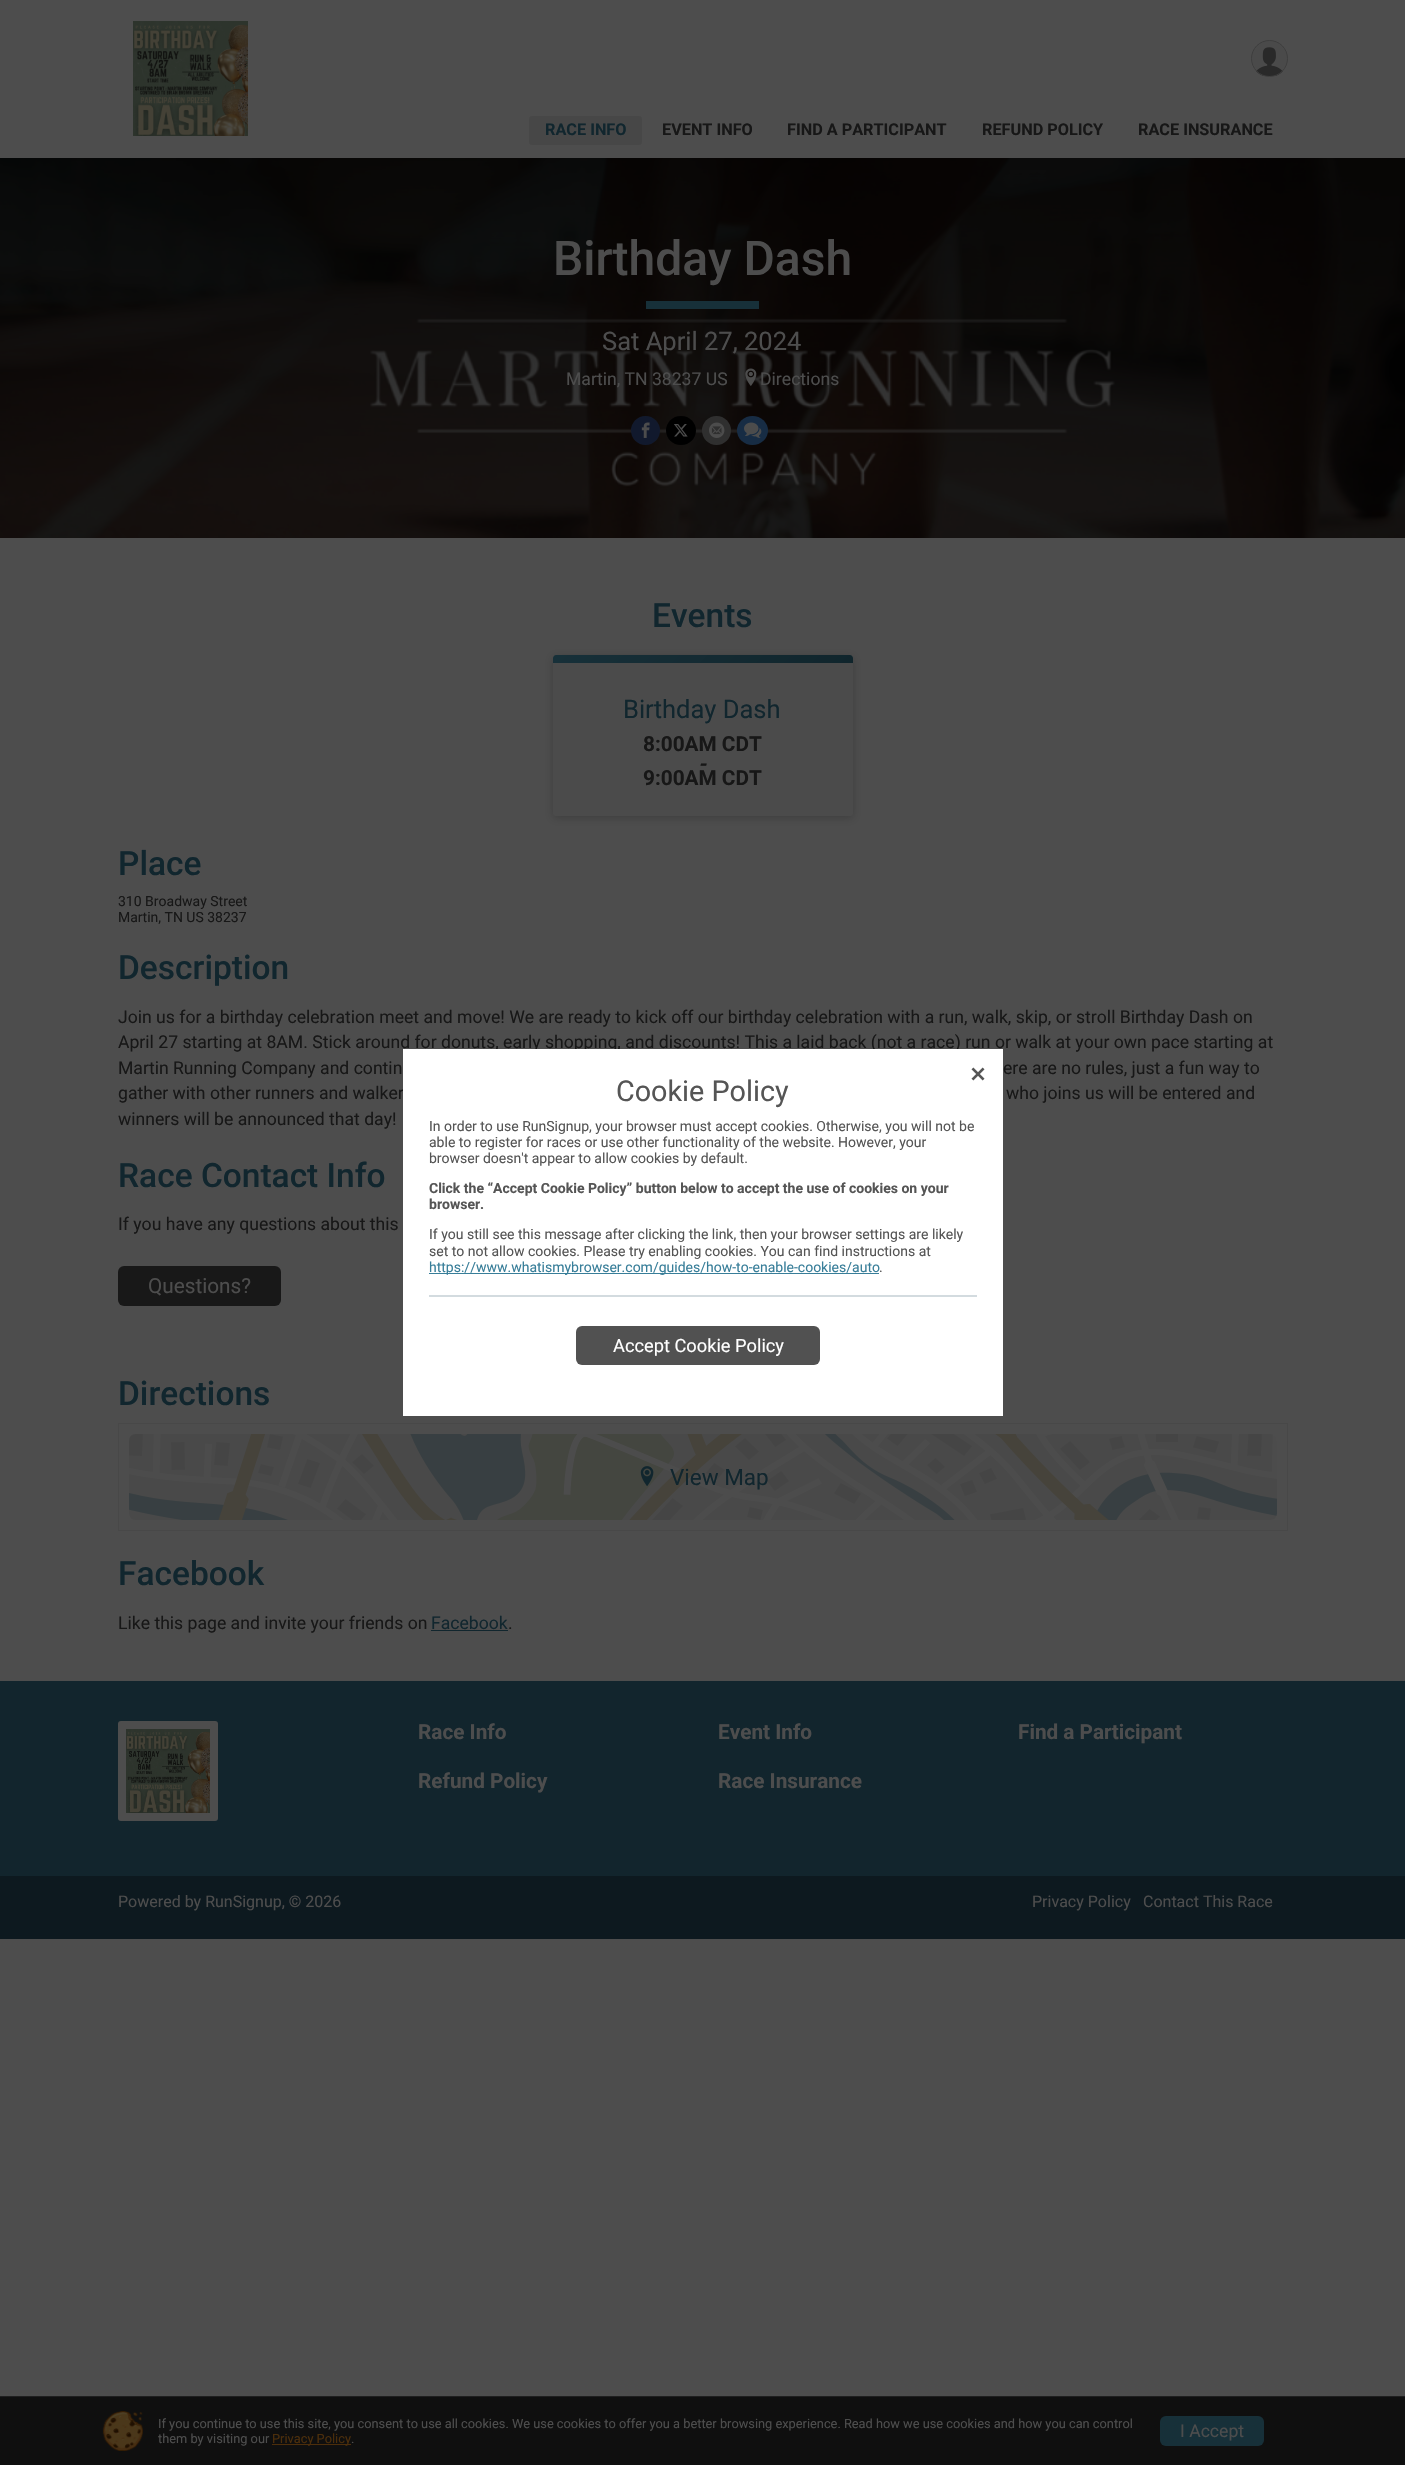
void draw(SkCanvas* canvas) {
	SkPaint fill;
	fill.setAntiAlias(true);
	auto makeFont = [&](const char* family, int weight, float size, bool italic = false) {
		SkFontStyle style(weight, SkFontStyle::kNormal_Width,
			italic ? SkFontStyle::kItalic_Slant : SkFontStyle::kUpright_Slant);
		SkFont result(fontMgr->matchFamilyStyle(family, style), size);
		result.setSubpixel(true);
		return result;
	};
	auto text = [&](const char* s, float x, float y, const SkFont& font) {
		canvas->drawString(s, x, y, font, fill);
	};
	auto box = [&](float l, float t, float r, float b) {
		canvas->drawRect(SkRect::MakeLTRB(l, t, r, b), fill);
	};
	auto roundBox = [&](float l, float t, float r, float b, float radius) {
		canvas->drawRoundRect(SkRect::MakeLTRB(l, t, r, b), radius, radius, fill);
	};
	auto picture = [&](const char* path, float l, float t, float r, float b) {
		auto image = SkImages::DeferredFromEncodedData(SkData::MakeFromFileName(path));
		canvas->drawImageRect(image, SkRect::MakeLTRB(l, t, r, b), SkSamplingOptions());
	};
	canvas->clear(0xFF4D4D4D);
	picture("image0.png", 133, 21, 248, 136);
	picture("image1.png", 1252, 41, 1287, 76);
	fill.setStyle(SkPaint::kStroke_Style);
	fill.setStrokeWidth(1);
	fill.setColor(0xFF3D3D3D);
	canvas->drawCircle(1269.5f, 58.5f, 18, fill);
	fill.setStyle(SkPaint::kFill_Style);
	fill.setColor(0xFF474747);
	roundBox(529, 116, 642, 145, 3);
	picture("image2.png", 0, 158, 1405, 538);
	fill.setColor(0xFF173039);
	box(646, 301, 759, 309);
	picture("image3.png", 745, 368, 757, 386);
	fill.setColor(0xFF11192D);
	canvas->drawCircle(645.5f, 430.5f, 14.5f, fill);
	picture("image4.png", 641, 422, 650, 438);
	fill.setColor(0xFF000000);
	roundBox(666, 416, 696, 445, 14.5f);
	picture("image5.png", 674, 424, 688, 437);
	fill.setColor(0xFF2F2F2F);
	canvas->drawCircle(716.5f, 430.5f, 14.5f, fill);
	picture("image6.png", 709, 422, 725, 438);
	fill.setColor(0xFF172C44);
	canvas->drawOval(SkRect::MakeLTRB(737, 416, 768, 445), fill);
	picture("image7.png", 744, 422, 762, 438);
	fill.setColor(0x33000000);
	fill.setMaskFilter(SkMaskFilter::MakeBlur(kNormal_SkBlurStyle, 4));
	canvas->drawRoundRect(SkRect::MakeLTRB(553, 657, 853, 818), 3, 3, fill);
	fill.setMaskFilter(nullptr);
	fill.setColor(0xFF4B4B4B);
	roundBox(553, 655, 853, 816, 3);
	{
		const SkColor colors[] = {0xFF10252C, 0xFF173039};
		const float stops[] = {0, 1};
		const SkPoint ends[] = {{780, 736}, {626, 582}};
		fill.setShader(SkGradientShader::MakeLinear(ends, colors, stops, 2, SkTileMode::kClamp));
		fill.setAlpha(255);
	}
	canvas->drawPath(SkPathBuilder().moveTo(556, 655).lineTo(850, 655).cubicTo(851.5f, 655, 853, 656.5f, 853, 658).lineTo(853, 663).lineTo(553, 663).lineTo(553, 658).cubicTo(553, 656.5f, 554.5f, 655, 556, 655).close().detach(), fill);
	fill.setShader(nullptr);
	fill.setColor(0xFF181818);
	roundBox(118, 1266, 281, 1306, 6);
	fill.setStyle(SkPaint::kStroke_Style);
	fill.setColor(0xFF484848);
	canvas->drawRect(SkRect::MakeLTRB(118.5f, 1423.5f, 1287.5f, 1530.5f), fill);
	picture("image8.png", 129, 1434, 1277, 1520);
	picture("image9.png", 640, 1466, 654, 1487);
	fill.setStyle(SkPaint::kFill_Style);
	fill.setColor(0xFF11262E);
	box(431, 1630, 508, 1631);
	fill.setColor(0xFF0D191F);
	box(0, 1876, 1405, 1939);
	fill.setColor(0xFF12252D);
	box(0, 1681, 1405, 1876);
	fill.setColor(0xFF4D4D4D);
	roundBox(118, 1721, 218, 1821, 3);
	picture("image10.png", 126, 1729, 210, 1813);
	fill.setColor(0xFF0F0F0F);
	box(0, 2397, 1405, 2465);
	fill.setColor(0xFF1F1F1F);
	box(0, 2396, 1405, 2397);
	picture("image12.png", 102, 2411, 143, 2451);
	fill.setColor(0xFF4C2E0B);
	box(272, 2444, 351, 2445);
	fill.setColor(0xFF173039);
	roundBox(1160, 2416, 1264, 2446, 6);
	auto font1 = makeFont("Roboto", 700, 16.25f);
	fill.setColor(0xFF11262E);
	text("RACE INFO", 545, 135, font1);
	fill.setColor(0xFF171717);
	text("EVENT INFO", 662, 135, font1);
	text("FIND A PARTICIPANT", 787, 135, font1);
	text("REFUND POLICY", 982, 135, font1);
	text("RACE INSURANCE", 1138, 135, font1);
	auto font2 = makeFont("Roboto", 500, 48);
	fill.setColor(0xFF4D4D4D);
	text("Birthday Dash", 553, 275, font2);
	auto font3 = makeFont("Roboto", 400, 25.5f);
	text("Sat April 27, 2024", 602, 350, font3);
	auto font4 = makeFont("Roboto", 400, 17.6f);
	text("Martin, TN 38237 US", 566, 385, font4);
	text("Directions", 760, 385, font4);
	auto font5 = makeFont("Roboto", 500, 33.5f);
	fill.setColor(0xFF11262E);
	text("Events", 652, 627, font5);
	text("Birthday Dash", 623, 718, font3);
	auto font6 = makeFont("Roboto", 700, 20.75f);
	fill.setColor(0xFF171717);
	text("8:00AM CDT", 643, 751, font6);
	auto font7 = makeFont("Roboto", 700, 20.75f, true);
	text("-", 698, 771, font7);
	text("9:00AM CDT", 643, 785, font6);
	fill.setColor(0xFF11262E);
	text("Place", 118, 875, font5);
	auto font8 = makeFont("Roboto", 400, 14);
	fill.setColor(0xFF171717);
	text("310 Broadway Street", 118, 906, font8);
	text("Martin, TN US 38237", 118, 922, font8);
	fill.setColor(0xFF11262E);
	text("Description", 118, 979, font5);
	fill.setColor(0xFF171717);
	text("Join us for a birthday celebration meet and move! We are ready to kick off our birthday celebration with a run, walk, skip, or stroll Birthday Dash on", 118, 1023, font4);
	text("April 27 starting at 8AM. Stick around for donuts, early shopping, and discounts! This a laid back (not a race) run or walk at your own pace starting at", 118, 1048, font4);
	text("Martin Running Company and contin", 118, 1074, font4);
	text("ere are no rules, just a fun way to", 1003, 1074, font4);
	text("gather with other runners and walker", 118, 1099, font4);
	text("who joins us will be entered and", 1006, 1099, font4);
	text("winners will be announced that day!", 118, 1125, font4);
	fill.setColor(0xFF11262E);
	text("Race Contact Info", 118, 1187, font5);
	fill.setColor(0xFF171717);
	text("If you have any questions about this", 118, 1230, font4);
	auto font9 = makeFont("Roboto", 400, 20.75f);
	fill.setColor(0xFF4D4D4D);
	text("Questions?", 148, 1293, font9);
	fill.setColor(0xFF11262E);
	text("Directions", 118, 1405, font5);
	auto font10 = makeFont("Roboto", 400, 22.5f);
	text("View Map", 670, 1485, font10);
	text("Facebook", 118, 1585, font5);
	fill.setColor(0xFF171717);
	text("Like this page and invite your friends on", 118, 1629, font4);
	fill.setColor(0xFF11262E);
	text("Facebook", 431, 1629, font4);
	fill.setColor(0xFF171717);
	text(".", 508, 1629, font4);
	fill.setColor(0xFF4D4D4D);
	text("Race Info", 418, 1739, font6);
	text("Refund Policy", 418, 1788, font6);
	text("Event Info", 718, 1739, font6);
	text("Race Insurance", 718, 1788, font6);
	text("Find a Participant", 1018, 1739, font6);
	auto font11 = makeFont("Roboto", 400, 16);
	text("Powered by RunSignup, © 2026", 118, 1907, font11);
	text("Privacy Policy", 1032, 1907, font11);
	text("Contact This Race", 1143, 1907, font11);
	fill.setStyle(SkPaint::kStroke_Style);
	fill.setColor(0xFFFFFFFF);
	canvas->drawRect(SkRect::MakeLTRB(403.5f, 1049.5f, 1002.5f, 1415.5f), fill);
	fill.setStyle(SkPaint::kFill_Style);
	box(404, 1050, 1002, 1415);
	picture("image11.png", 971, 1067, 985, 1081);
	auto font12 = makeFont("Roboto", 400, 28.75f);
	fill.setColor(0xFF555555);
	text("Cookie Policy", 616, 1101, font12);
	text("In order to use RunSignup, your browser must accept cookies. Otherwise, you will not be", 429, 1131, font8);
	text("able to register for races or use other functionality of the website. However, your", 429, 1147, font8);
	text("browser doesn't appear to allow cookies by default.", 429, 1163, font8);
	auto font13 = makeFont("Roboto", 700, 14);
	text("Click the “Accept Cookie Policy” button below to accept the use of cookies on your", 429, 1193, font13);
	text("browser.", 429, 1209, font13);
	text("If you still see this message after clicking the link, then your browser settings are likely", 429, 1239, font8);
	text("set to not allow cookies. Please try enabling cookies. You can find instructions at", 429, 1256, font8);
	fill.setColor(0xFF387E99);
	box(429, 1273, 879, 1274);
	text("https://www.whatismybrowser.com/guides/how-to-enable-cookies/auto", 429, 1272, font8);
	fill.setColor(0xFF555555);
	text(".", 879, 1272, font8);
	fill.setColor(0xFFD3DBDF);
	box(429, 1295, 977, 1297);
	fill.setColor(0xFF515151);
	roundBox(576, 1326, 820, 1365, 6);
	auto font14 = makeFont("Roboto", 400, 18.25f);
	fill.setColor(0xFFFFFFFF);
	text("Accept Cookie Policy", 613, 1352, font14);
	auto font15 = makeFont("Roboto", 400, 12.8f);
	fill.setColor(0xFF4D4D4D);
	text("If you continue to use this site, you consent to use all cookies. We use cookies to offer you a better browsing experience. Read how we use cookies and how you can control", 158, 2428, font15);
	text("them by visiting our", 158, 2443, font15);
	fill.setColor(0xFF4C2E0B);
	text("Privacy Policy", 272, 2443, font15);
	fill.setColor(0xFF4D4D4D);
	text(".", 351, 2443, font15);
	text("I Accept", 1180, 2437, font4);
}
